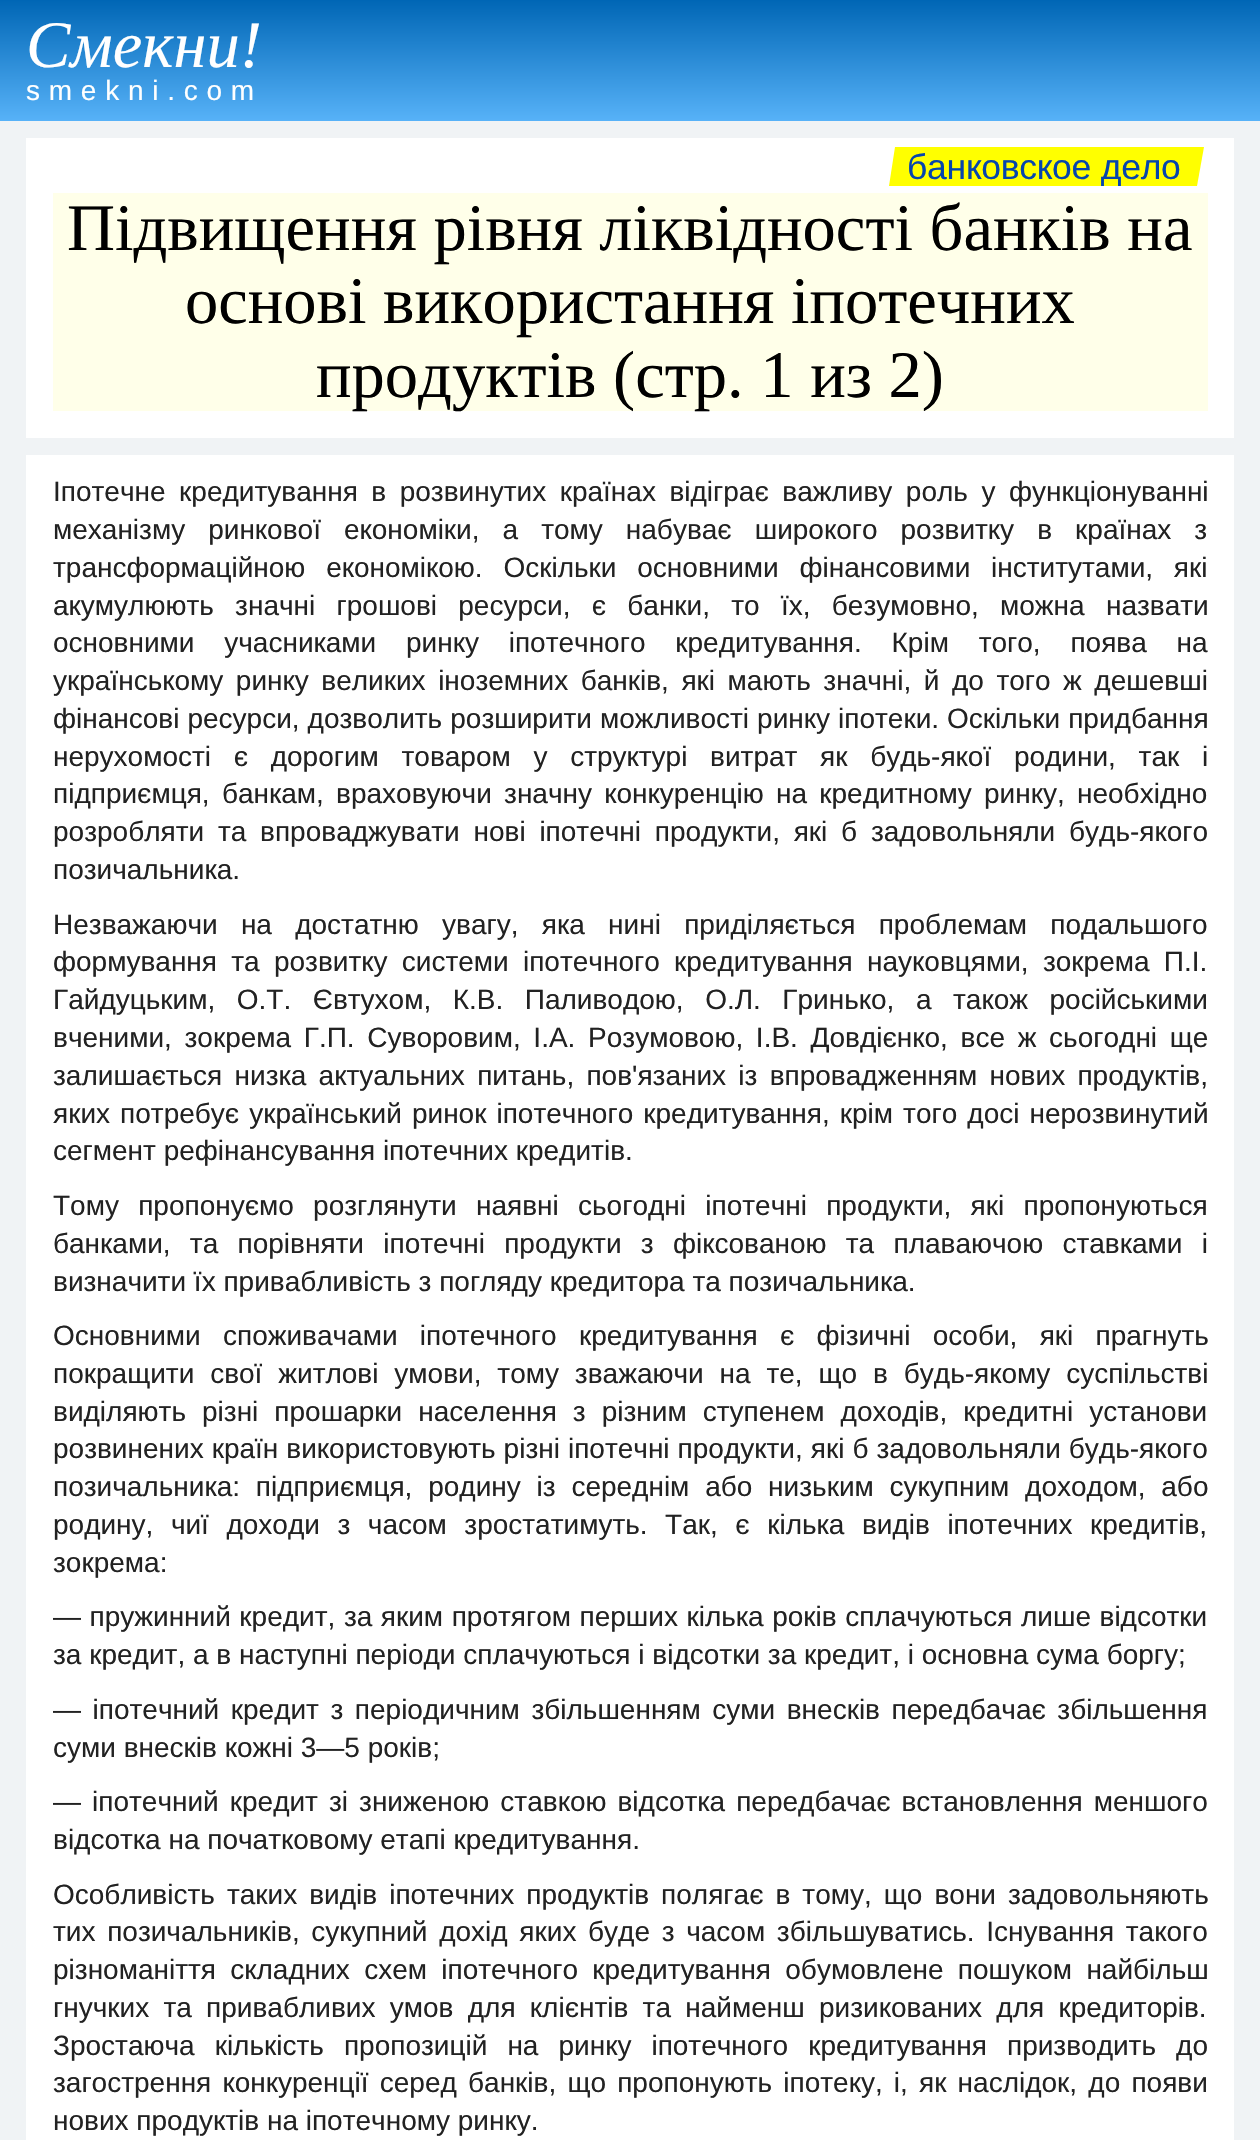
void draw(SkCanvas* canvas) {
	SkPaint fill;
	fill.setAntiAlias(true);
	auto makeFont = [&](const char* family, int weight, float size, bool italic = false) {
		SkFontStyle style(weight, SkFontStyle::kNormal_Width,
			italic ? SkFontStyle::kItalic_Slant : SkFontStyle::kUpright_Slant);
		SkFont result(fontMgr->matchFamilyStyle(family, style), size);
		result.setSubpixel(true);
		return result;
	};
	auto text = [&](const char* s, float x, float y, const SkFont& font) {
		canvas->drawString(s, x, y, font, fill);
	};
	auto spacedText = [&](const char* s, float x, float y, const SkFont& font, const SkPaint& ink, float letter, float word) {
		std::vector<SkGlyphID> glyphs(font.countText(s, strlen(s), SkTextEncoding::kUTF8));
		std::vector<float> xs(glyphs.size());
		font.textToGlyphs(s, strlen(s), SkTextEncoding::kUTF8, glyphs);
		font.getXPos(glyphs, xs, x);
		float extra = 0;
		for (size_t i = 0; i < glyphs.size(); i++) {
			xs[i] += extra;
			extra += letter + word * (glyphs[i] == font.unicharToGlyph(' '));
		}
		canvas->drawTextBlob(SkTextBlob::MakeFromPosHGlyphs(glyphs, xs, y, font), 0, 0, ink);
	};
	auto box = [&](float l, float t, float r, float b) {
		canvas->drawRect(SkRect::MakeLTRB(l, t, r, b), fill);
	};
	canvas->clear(0xFFF0F3F5);
	{
		const SkColor colors[] = {0xFF0066B5, 0xFF57B2F8};
		const float stops[] = {0, 1};
		const SkPoint ends[] = {{630, 0}, {630, 121}};
		fill.setShader(SkGradientShader::MakeLinear(ends, colors, stops, 2, SkTileMode::kClamp));
		fill.setAlpha(255);
	}
	box(0, 0, 1260, 121);
	fill.setShader(nullptr);
	fill.setColor(0xFFFFFFFF);
	box(26, 138, 1234, 438);
	fill.setColor(0xFFFFFF00);
	canvas->drawPath(SkPathBuilder().moveTo(895, 147).lineTo(1204, 147).lineTo(1197, 186).lineTo(889, 186).close().detach(), fill);
	fill.setColor(0xFFFFFFE9);
	box(53, 193, 1208, 411);
	fill.setColor(0xFFFFFFFF);
	box(26, 455, 1234, 2140);
	auto font1 = makeFont("Liberation Serif", 400, 66.5f, true);
	text("Смекни!", 26, 67, font1);
	auto font2 = makeFont("Liberation Sans", 400, 28);
	spacedText("smekni.com", 26, 100, font2, fill, 8.75f, 0);
	auto font3 = makeFont("Liberation Sans", 400, 35.5f);
	fill.setColor(0xFF0645AD);
	spacedText("банковское дело", 907, 179, font3, fill, -0.25f, 0);
	auto font4 = makeFont("Liberation Serif", 400, 66.5f);
	fill.setColor(0xFF000000);
	text("Підвищення рівня ліквідності банків на", 67, 250, font4);
	text("основі використання іпотечних", 185, 323, font4);
	text("продуктів (стр. 1 из 2)", 316, 397, font4);
	fill.setColor(0xFF222222);
	spacedText("Іпотечне кредитування в розвинутих країнах відіграє важливу роль у функціонуванні", 53, 501, font2, fill, 0, 5.75f);
	spacedText("механізму ринкової економіки, а тому набуває широкого розвитку в країнах з", 53, 539, font2, fill, 0, 15.25f);
	spacedText("трансформаційною економікою. Оскільки основними фінансовими інститутами, які", 53, 577, font2, fill, 0, 13);
	spacedText("акумулюють значні грошові ресурси, є банки, то їх, безумовно, можна назвати", 53, 615, font2, fill, 0, 13.5f);
	spacedText("основними учасниками ринку іпотечного кредитування. Крім того, поява на", 53, 652, font2, fill, 0, 22);
	spacedText("українському ринку великих іноземних банків, які мають значні, й до того ж дешевші", 53, 690, font2, fill, 0, 4.75f);
	spacedText("фінансові ресурси, дозволить розширити можливості ринку іпотеки. Оскільки придбання", 53, 728, font2, fill, 0, 0.25f);
	spacedText("нерухомості є дорогим товаром у структурі витрат як будь-якої родини, так і", 53, 766, font2, fill, 0, 14.9f);
	spacedText("підприємця, банкам, враховуючи значну конкуренцію на кредитному ринку, необхідно", 53, 803, font2, fill, 0, 4.5f);
	spacedText("розробляти та впроваджувати нові іпотечні продукти, які б задовольняли будь-якого", 53, 841, font2, fill, 0, 6);
	text("позичальника.", 53, 879, font2);
	spacedText("Незважаючи на достатню увагу, яка нині приділяється проблемам подальшого", 53, 934, font2, fill, 0, 15.5f);
	spacedText("формування та розвитку системи іпотечного кредитування науковцями, зокрема П.І.", 53, 971, font2, fill, 0, 6.5f);
	spacedText("Гайдуцьким, О.Т. Євтухом, К.В. Паливодою, О.Л. Гринько, а також російськими", 53, 1009, font2, fill, 0, 13.75f);
	spacedText("вченими, зокрема Г.П. Суворовим, I.A. Розумовою, І.В. Довдієнко, все ж сьогодні ще", 53, 1047, font2, fill, 0, 4.9f);
	spacedText("залишається низка актуальних питань, пов'язаних із впровадженням нових продуктів,", 53, 1085, font2, fill, 0, 4.5f);
	spacedText("яких потребує український ринок іпотечного кредитування, крім того досі нерозвинутий", 53, 1123, font2, fill, 0, 2.25f);
	text("сегмент рефінансування іпотечних кредитів.", 53, 1160, font2);
	spacedText("Тому пропонуємо розглянути наявні сьогодні іпотечні продукти, які пропонуються", 53, 1215, font2, fill, 0, 11.5f);
	spacedText("банками, та порівняти іпотечні продукти з фіксованою та плаваючою ставками і", 53, 1253, font2, fill, 0, 11.5f);
	text("визначити їх привабливість з погляду кредитора та позичальника.", 53, 1291, font2);
	spacedText("Основними споживачами іпотечного кредитування є фізичні особи, які прагнуть", 53, 1345, font2, fill, 0, 14.5f);
	spacedText("покращити свої житлові умови, тому зважаючи на те, що в будь-якому суспільстві", 53, 1383, font2, fill, 0, 8.1f);
	spacedText("виділяють різні прошарки населення з різним ступенем доходів, кредитні установи", 53, 1421, font2, fill, 0, 8.25f);
	spacedText("розвинених країн використовують різні іпотечні продукти, які б задовольняли будь-якого", 53, 1458, font2, fill, 0, 0.25f);
	spacedText("позичальника: підприємця, родину із середнім або низьким сукупним доходом, або", 53, 1496, font2, fill, 0, 8);
	spacedText("родину, чиї доходи з часом зростатимуть. Так, є кілька видів іпотечних кредитів,", 53, 1534, font2, fill, 0, 9.75f);
	text("зокрема:", 53, 1572, font2);
	spacedText("— пружинний кредит, за яким протягом перших кілька років сплачуються лише відсотки", 53, 1626, font2, fill, 0, 0.75f);
	text("за кредит, а в наступні періоди сплачуються і відсотки за кредит, і основна сума боргу;", 53, 1664, font2);
	spacedText("— іпотечний кредит з періодичним збільшенням суми внесків передбачає збільшення", 53, 1719, font2, fill, 0, 3.75f);
	text("суми внесків кожні 3—5 років;", 53, 1757, font2);
	spacedText("— іпотечний кредит зі зниженою ставкою відсотка передбачає встановлення меншого", 53, 1811, font2, fill, 0, 3.25f);
	text("відсотка на початковому етапі кредитування.", 53, 1849, font2);
	spacedText("Особливість таких видів іпотечних продуктів полягає в тому, що вони задовольняють", 53, 1904, font2, fill, 0, 4.25f);
	spacedText("тих позичальників, сукупний дохід яких буде з часом збільшуватись. Існування такого", 53, 1941, font2, fill, 0, 3.9f);
	spacedText("різноманіття складних схем іпотечного кредитування обумовлене пошуком найбільш", 53, 1979, font2, fill, 0, 6.5f);
	spacedText("гнучких та привабливих умов для клієнтів та найменш ризикованих для кредиторів.", 53, 2017, font2, fill, 0, 6.5f);
	spacedText("Зростаюча кількість пропозицій на ринку іпотечного кредитування призводить до", 53, 2055, font2, fill, 0, 12.25f);
	spacedText("загострення конкуренції серед банків, що пропонують іпотеку, і, як наслідок, до появи", 53, 2092, font2, fill, 0, 3.4f);
	text("нових продуктів на іпотечному ринку.", 53, 2130, font2);
}
